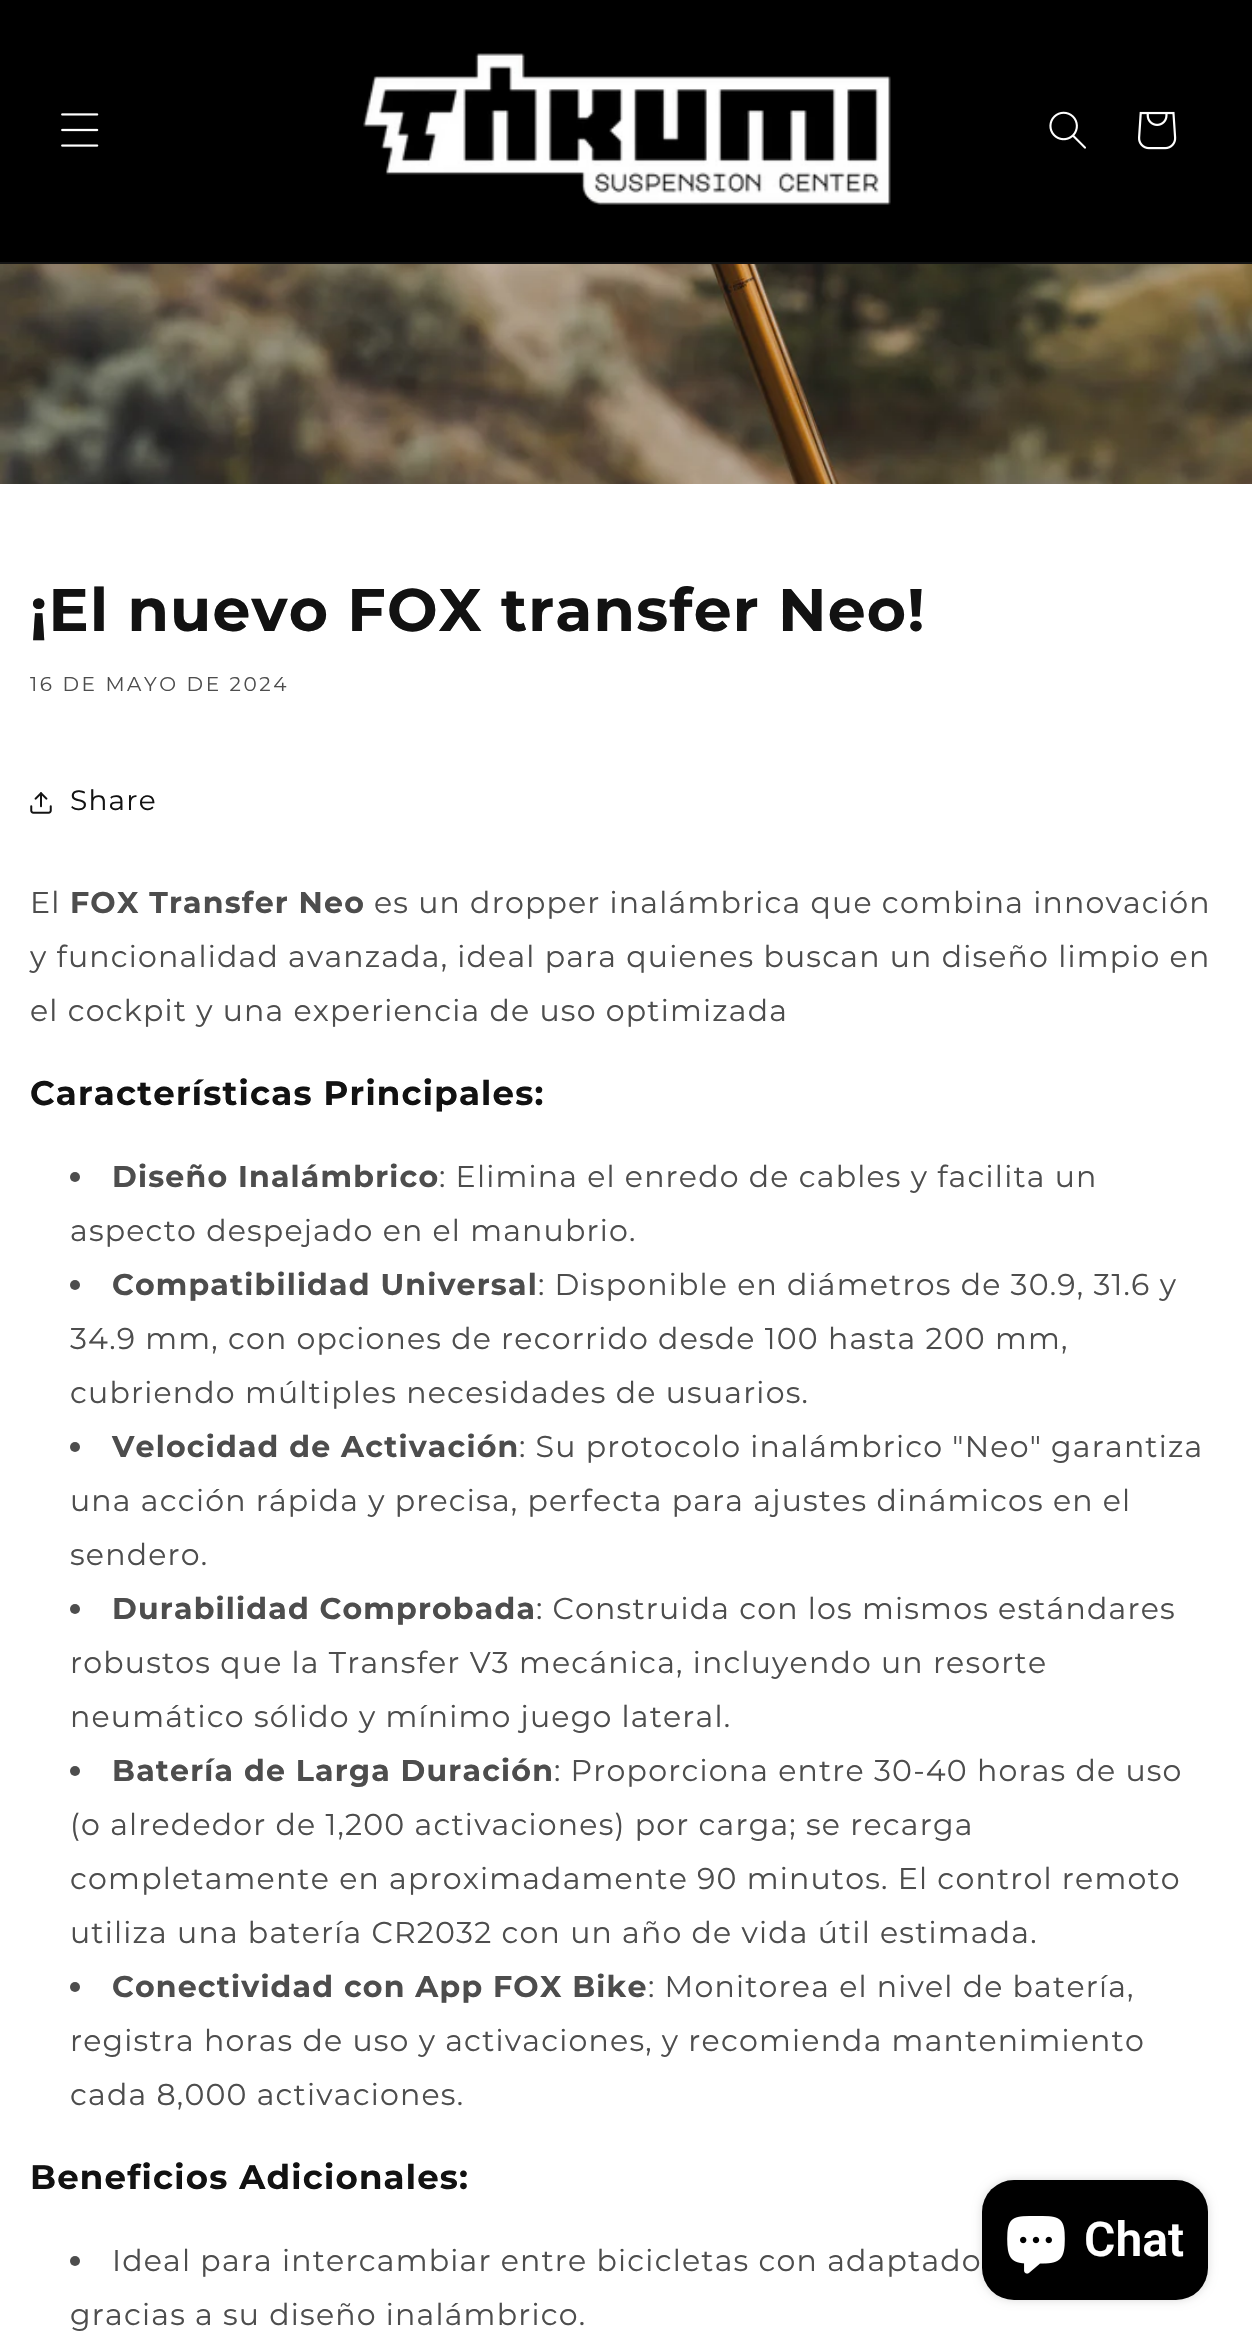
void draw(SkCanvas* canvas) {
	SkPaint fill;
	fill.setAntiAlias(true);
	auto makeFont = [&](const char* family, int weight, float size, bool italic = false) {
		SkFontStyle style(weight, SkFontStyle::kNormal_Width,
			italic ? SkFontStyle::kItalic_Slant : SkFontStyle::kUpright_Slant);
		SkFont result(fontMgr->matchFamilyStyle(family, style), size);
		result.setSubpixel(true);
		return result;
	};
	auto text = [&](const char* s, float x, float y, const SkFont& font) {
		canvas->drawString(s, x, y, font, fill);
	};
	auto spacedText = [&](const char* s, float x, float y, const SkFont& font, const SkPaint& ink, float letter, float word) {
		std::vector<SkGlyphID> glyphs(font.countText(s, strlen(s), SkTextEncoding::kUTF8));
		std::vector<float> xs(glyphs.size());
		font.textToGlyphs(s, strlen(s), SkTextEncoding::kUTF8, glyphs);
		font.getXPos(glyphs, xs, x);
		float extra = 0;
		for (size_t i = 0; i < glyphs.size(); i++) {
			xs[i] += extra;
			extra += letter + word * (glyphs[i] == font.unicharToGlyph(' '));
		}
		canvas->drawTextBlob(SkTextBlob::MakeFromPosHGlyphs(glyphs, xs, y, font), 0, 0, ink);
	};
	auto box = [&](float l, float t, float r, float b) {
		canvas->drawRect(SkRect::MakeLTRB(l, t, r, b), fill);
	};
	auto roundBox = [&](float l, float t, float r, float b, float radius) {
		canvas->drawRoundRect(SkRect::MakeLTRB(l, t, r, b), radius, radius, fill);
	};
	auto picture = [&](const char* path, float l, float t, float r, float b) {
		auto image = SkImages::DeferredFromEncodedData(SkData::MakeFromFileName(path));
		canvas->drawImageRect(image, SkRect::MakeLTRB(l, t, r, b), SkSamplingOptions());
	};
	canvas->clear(0xFFFFFFFF);
	fill.setColor(0xFF000000);
	box(0, 0, 1252, 262);
	fill.setColor(0xFF141414);
	box(0, 262, 1252, 264);
	picture("image0.png", 61, 113, 99, 147);
	picture("image1.png", 363, 53, 891, 205);
	picture("image2.png", 1049, 111, 1086, 149);
	picture("image3.png", 1138, 111, 1177, 150);
	picture("image4.png", 0, 264, 1252, 484);
	picture("image5.png", 30, 792, 52, 814);
	fill.setColor(0xFF4D4D4D);
	canvas->drawCircle(75, 1177, 5, fill);
	canvas->drawCircle(75, 1285, 5, fill);
	canvas->drawCircle(75, 1447, 5, fill);
	canvas->drawCircle(75, 1609, 5, fill);
	canvas->drawCircle(75, 1771, 5, fill);
	canvas->drawCircle(75, 1987, 5, fill);
	canvas->drawCircle(75, 2261, 5, fill);
	fill.setColor(0x26000000);
	fill.setMaskFilter(SkMaskFilter::MakeBlur(kNormal_SkBlurStyle, 5));
	canvas->drawRoundRect(SkRect::MakeLTRB(982, 2180, 1208, 2300), 32, 32, fill);
	fill.setMaskFilter(nullptr);
	fill.setColor(0xFF000000);
	roundBox(982, 2180, 1208, 2300, 32);
	picture("image6.png", 1007, 2216, 1065, 2274);
	auto font1 = makeFont("Montserrat", 700, 60);
	fill.setColor(0xFF121212);
	spacedText("¡El nuevo FOX transfer Neo!", 30, 631, font1, fill, 1.2f, 0);
	auto font2 = makeFont("Montserrat", 400, 20);
	fill.setColor(0xFF4D4D4D);
	spacedText("16 DE MAYO DE 2024", 30, 691, font2, fill, 2.6f, 0);
	auto font3 = makeFont("Montserrat", 400, 28);
	fill.setColor(0xFF121212);
	spacedText("Share", 70, 810, font3, fill, 1.2f, 0);
	auto font4 = makeFont("Montserrat", 400, 30);
	fill.setColor(0xFF4D4D4D);
	spacedText("El", 30, 913, font4, fill, 1.2f, 0);
	auto font5 = makeFont("Montserrat", 700, 30);
	spacedText("FOX Transfer Neo", 70, 913, font5, fill, 1.2f, 0);
	spacedText("es un dropper inalámbrica que combina innovación", 374, 913, font4, fill, 1.2f, 0);
	spacedText("y funcionalidad avanzada, ideal para quienes buscan un diseño limpio en", 30, 967, font4, fill, 1.2f, 0);
	spacedText("el cockpit y una experiencia de uso optimizada", 30, 1021, font4, fill, 1.2f, 0);
	auto font6 = makeFont("Montserrat", 700, 34);
	fill.setColor(0xFF121212);
	spacedText("Características Principales:", 30, 1105, font6, fill, 1.2f, 0);
	fill.setColor(0xFF4D4D4D);
	spacedText("Diseño Inalámbrico", 112, 1187, font5, fill, 1.2f, 0);
	spacedText(": Elimina el enredo de cables y facilita un", 439, 1187, font4, fill, 1.2f, 0);
	spacedText("aspecto despejado en el manubrio.", 70, 1241, font4, fill, 1.2f, 0);
	spacedText("Compatibilidad Universal", 112, 1295, font5, fill, 1.2f, 0);
	spacedText(": Disponible en diámetros de 30.9, 31.6 y", 538, 1295, font4, fill, 1.2f, 0);
	spacedText("34.9 mm, con opciones de recorrido desde 100 hasta 200 mm,", 70, 1349, font4, fill, 1.2f, 0);
	spacedText("cubriendo múltiples necesidades de usuarios.", 70, 1403, font4, fill, 1.2f, 0);
	spacedText("Velocidad de Activación", 112, 1457, font5, fill, 1.2f, 0);
	spacedText(": Su protocolo inalámbrico \"Neo\" garantiza", 519, 1457, font4, fill, 1.2f, 0);
	spacedText("una acción rápida y precisa, perfecta para ajustes dinámicos en el", 70, 1511, font4, fill, 1.2f, 0);
	spacedText("sendero.", 70, 1565, font4, fill, 1.2f, 0);
	spacedText("Durabilidad Comprobada", 112, 1619, font5, fill, 1.2f, 0);
	spacedText(": Construida con los mismos estándares", 536, 1619, font4, fill, 1.2f, 0);
	spacedText("robustos que la Transfer V3 mecánica, incluyendo un resorte", 70, 1673, font4, fill, 1.2f, 0);
	spacedText("neumático sólido y mínimo juego lateral.", 70, 1727, font4, fill, 1.2f, 0);
	spacedText("Batería de Larga Duración", 112, 1781, font5, fill, 1.2f, 0);
	spacedText(": Proporciona entre 30-40 horas de uso", 554, 1781, font4, fill, 1.2f, 0);
	spacedText("(o alrededor de 1,200 activaciones) por carga; se recarga", 70, 1835, font4, fill, 1.2f, 0);
	spacedText("completamente en aproximadamente 90 minutos. El control remoto", 70, 1889, font4, fill, 1.2f, 0);
	spacedText("utiliza una batería CR2032 con un año de vida útil estimada.", 70, 1943, font4, fill, 1.2f, 0);
	spacedText("Conectividad con App FOX Bike", 112, 1997, font5, fill, 1.2f, 0);
	spacedText(": Monitorea el nivel de batería,", 648, 1997, font4, fill, 1.2f, 0);
	spacedText("registra horas de uso y activaciones, y recomienda mantenimiento", 70, 2051, font4, fill, 1.2f, 0);
	spacedText("cada 8,000 activaciones.", 70, 2105, font4, fill, 1.2f, 0);
	fill.setColor(0xFF121212);
	spacedText("Beneficios Adicionales:", 30, 2189, font6, fill, 1.2f, 0);
	fill.setColor(0xFF4D4D4D);
	spacedText("Ideal para intercambiar entre bicicletas con adaptado", 112, 2271, font4, fill, 1.2f, 0);
	spacedText("gracias a su diseño inalámbrico.", 70, 2325, font4, fill, 1.2f, 0);
	auto font7 = makeFont("Roboto", 600, 48);
	fill.setColor(0xFFFFFFFF);
	text("Chat", 1084, 2256, font7);
}
